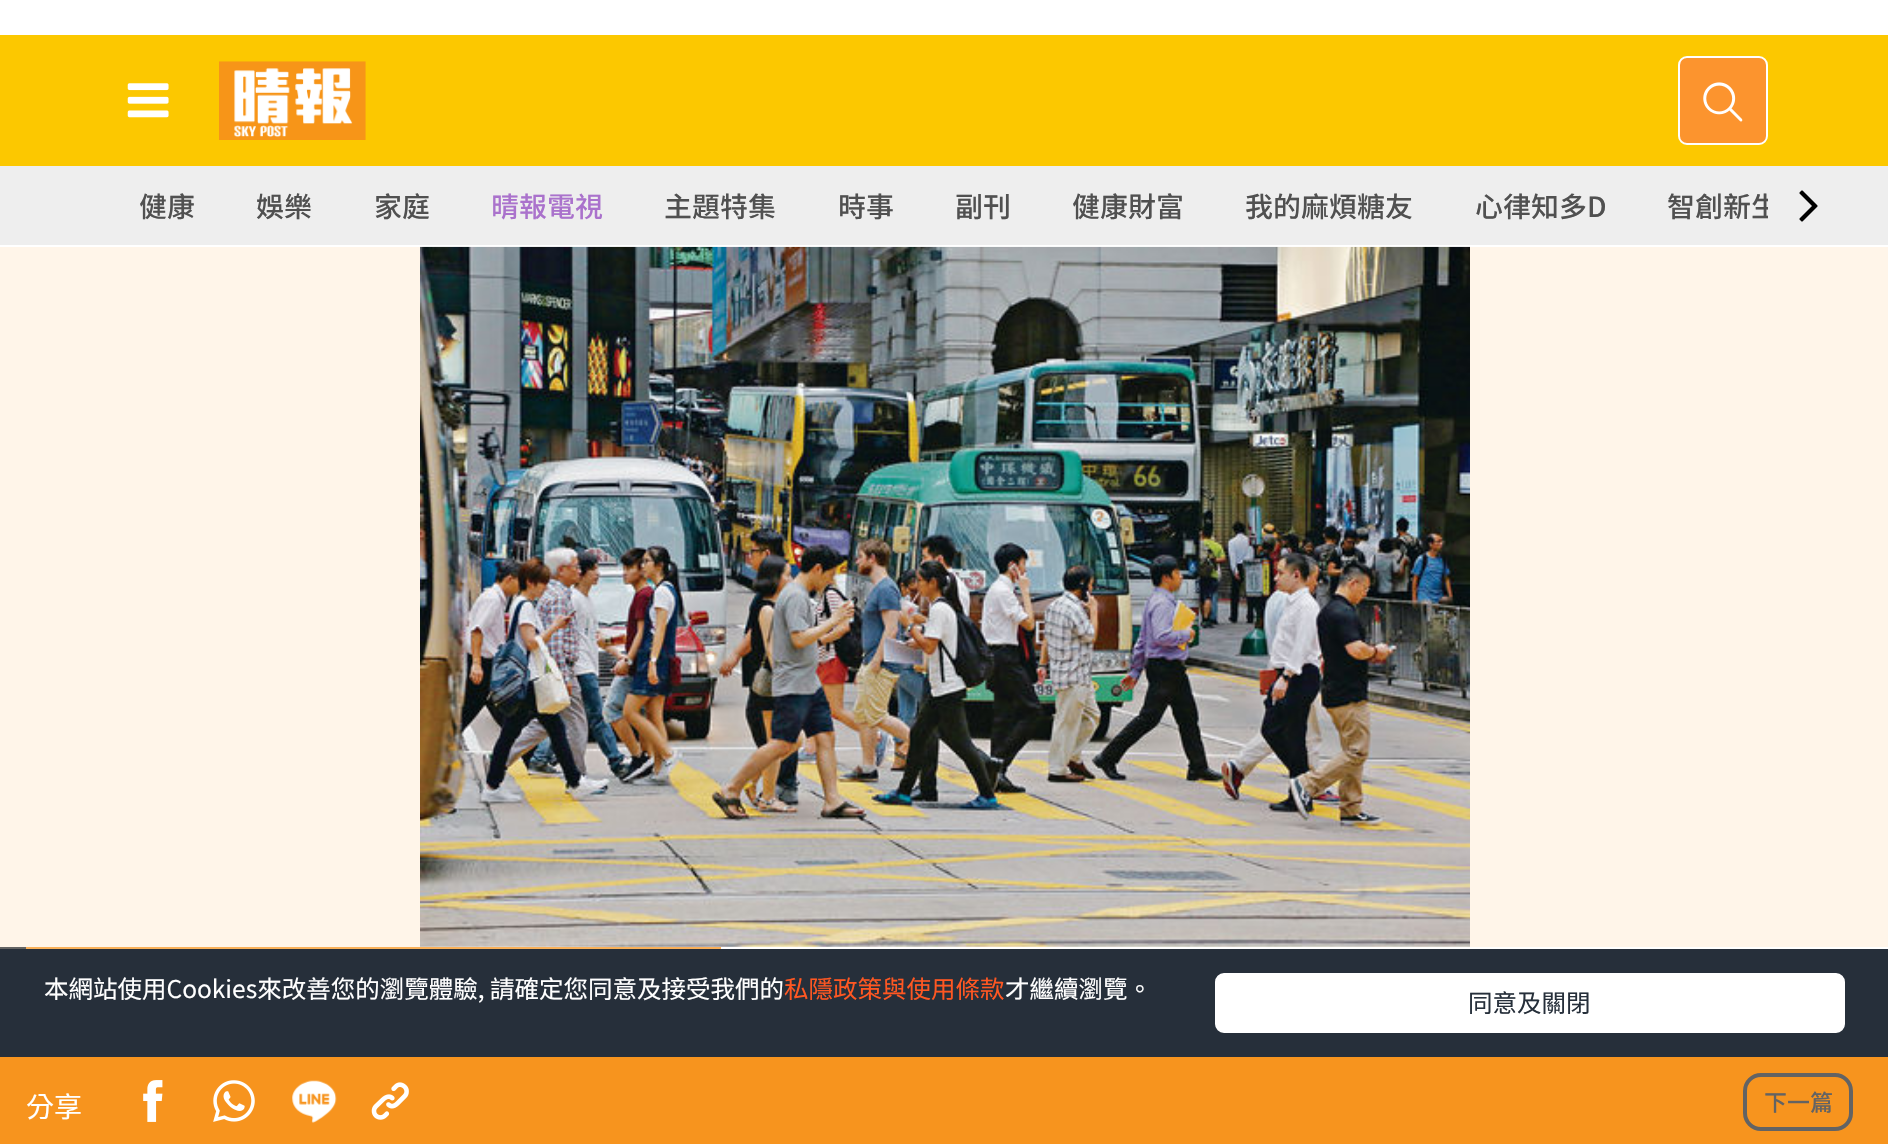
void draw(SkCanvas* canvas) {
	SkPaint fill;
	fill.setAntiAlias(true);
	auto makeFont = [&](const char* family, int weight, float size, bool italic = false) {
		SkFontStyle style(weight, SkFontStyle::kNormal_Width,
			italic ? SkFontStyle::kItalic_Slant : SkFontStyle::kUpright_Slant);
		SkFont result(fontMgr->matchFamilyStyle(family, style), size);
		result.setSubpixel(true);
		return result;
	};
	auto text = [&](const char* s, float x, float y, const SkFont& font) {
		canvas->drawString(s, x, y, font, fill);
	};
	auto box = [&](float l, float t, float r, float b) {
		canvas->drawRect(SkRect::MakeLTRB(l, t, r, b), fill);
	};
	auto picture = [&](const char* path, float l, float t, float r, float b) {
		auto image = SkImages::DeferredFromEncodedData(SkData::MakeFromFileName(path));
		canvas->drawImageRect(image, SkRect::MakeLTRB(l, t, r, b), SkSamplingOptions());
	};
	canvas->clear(0xFFFFFFFF);
	fill.setColor(0xFFFCC800);
	box(0, 35, 1888, 166);
	picture("image0.png", 127, 83, 169, 118);
	picture("image1.png", 219, 61, 366, 140);
	fill.setColor(0xFFFC942E);
	canvas->drawRoundRect(SkRect::MakeLTRB(1679, 57, 1767, 144), 8, 8, fill);
	fill.setStyle(SkPaint::kStroke_Style);
	fill.setStrokeWidth(2);
	fill.setColor(0xFFFFFFFF);
	canvas->drawRoundRect(SkRect::MakeLTRB(1679, 57, 1767, 144), 8, 8, fill);
	picture("image2.png", 1703, 82, 1743, 122);
	fill.setStyle(SkPaint::kFill_Style);
	fill.setColor(0xFFEEEEEE);
	box(0, 166, 1888, 245);
	picture("image3.png", 1799, 190, 1818, 222);
	fill.setColor(0xFFFFF5E9);
	box(0, 247, 1888, 947);
	picture("image4.png", 420, 246, 1470, 947);
	fill.setColor(0xFFF9B059);
	box(26, 947, 721, 949);
	fill.setColor(0xFF636363);
	box(0, 947, 26, 949);
	fill.setColor(0xFFF7941E);
	box(0, 1057, 1888, 1144);
	picture("image5.png", 143, 1080, 163, 1122);
	picture("image6.png", 213, 1080, 255, 1122);
	picture("image7.png", 292, 1080, 337, 1123);
	picture("image8.png", 371, 1082, 409, 1120);
	fill.setStyle(SkPaint::kStroke_Style);
	fill.setStrokeWidth(4);
	fill.setColor(0xFF636363);
	canvas->drawRoundRect(SkRect::MakeLTRB(1745, 1075, 1851, 1129), 16, 16, fill);
	fill.setStyle(SkPaint::kFill_Style);
	fill.setColor(0xFF262F3A);
	box(0, 949, 1888, 1057);
	fill.setColor(0xFFFFFFFF);
	canvas->drawRoundRect(SkRect::MakeLTRB(1216, 974, 1844, 1032), 8, 8, fill);
	fill.setStyle(SkPaint::kStroke_Style);
	fill.setStrokeWidth(2);
	canvas->drawRoundRect(SkRect::MakeLTRB(1216, 974, 1844, 1032), 8, 8, fill);
	auto font1 = makeFont("Noto Sans TC", 500, 28);
	fill.setStyle(SkPaint::kFill_Style);
	fill.setColor(0xFF505050);
	text("健康", 139, 217, font1);
	text("娛樂", 256, 217, font1);
	text("家庭", 374, 217, font1);
	fill.setColor(0xFFAA72CC);
	text("晴報電視", 491, 217, font1);
	fill.setColor(0xFF505050);
	text("主題特集", 664, 217, font1);
	text("時事", 838, 217, font1);
	text("副刊", 955, 217, font1);
	text("健康財富", 1072, 217, font1);
	text("我的麻煩糖友", 1245, 217, font1);
	text("心律知多D", 1475, 217, font1);
	canvas->save();
	canvas->clipRect(SkRect::MakeLTRB(123, 166, 1768, 243));
	text("智創新生", 1667, 217, font1);
	canvas->restore();
	auto font2 = makeFont("Noto Sans TC", 100, 28);
	fill.setColor(0xFFFFFFFF);
	text("分享", 26, 1117, font2);
	auto font3 = makeFont("Noto Sans TC", 500, 23);
	fill.setColor(0xFF636363);
	text("下一篇", 1764, 1111, font3);
	auto font4 = makeFont("Noto Sans TC", 100, 24.5f);
	fill.setColor(0xFFFFFFFF);
	text("本網站使用Cookies來改善您的瀏覽體驗, 請確定您同意及接受我們的", 44, 998, font4);
	fill.setColor(0xFFFF5722);
	text("私隱政策與使用條款", 784, 998, font4);
	fill.setColor(0xFFFFFFFF);
	text("才繼續瀏覽。", 1005, 998, font4);
	fill.setColor(0xFF262F3A);
	text("同意及關閉", 1468, 1012, font4);
}
